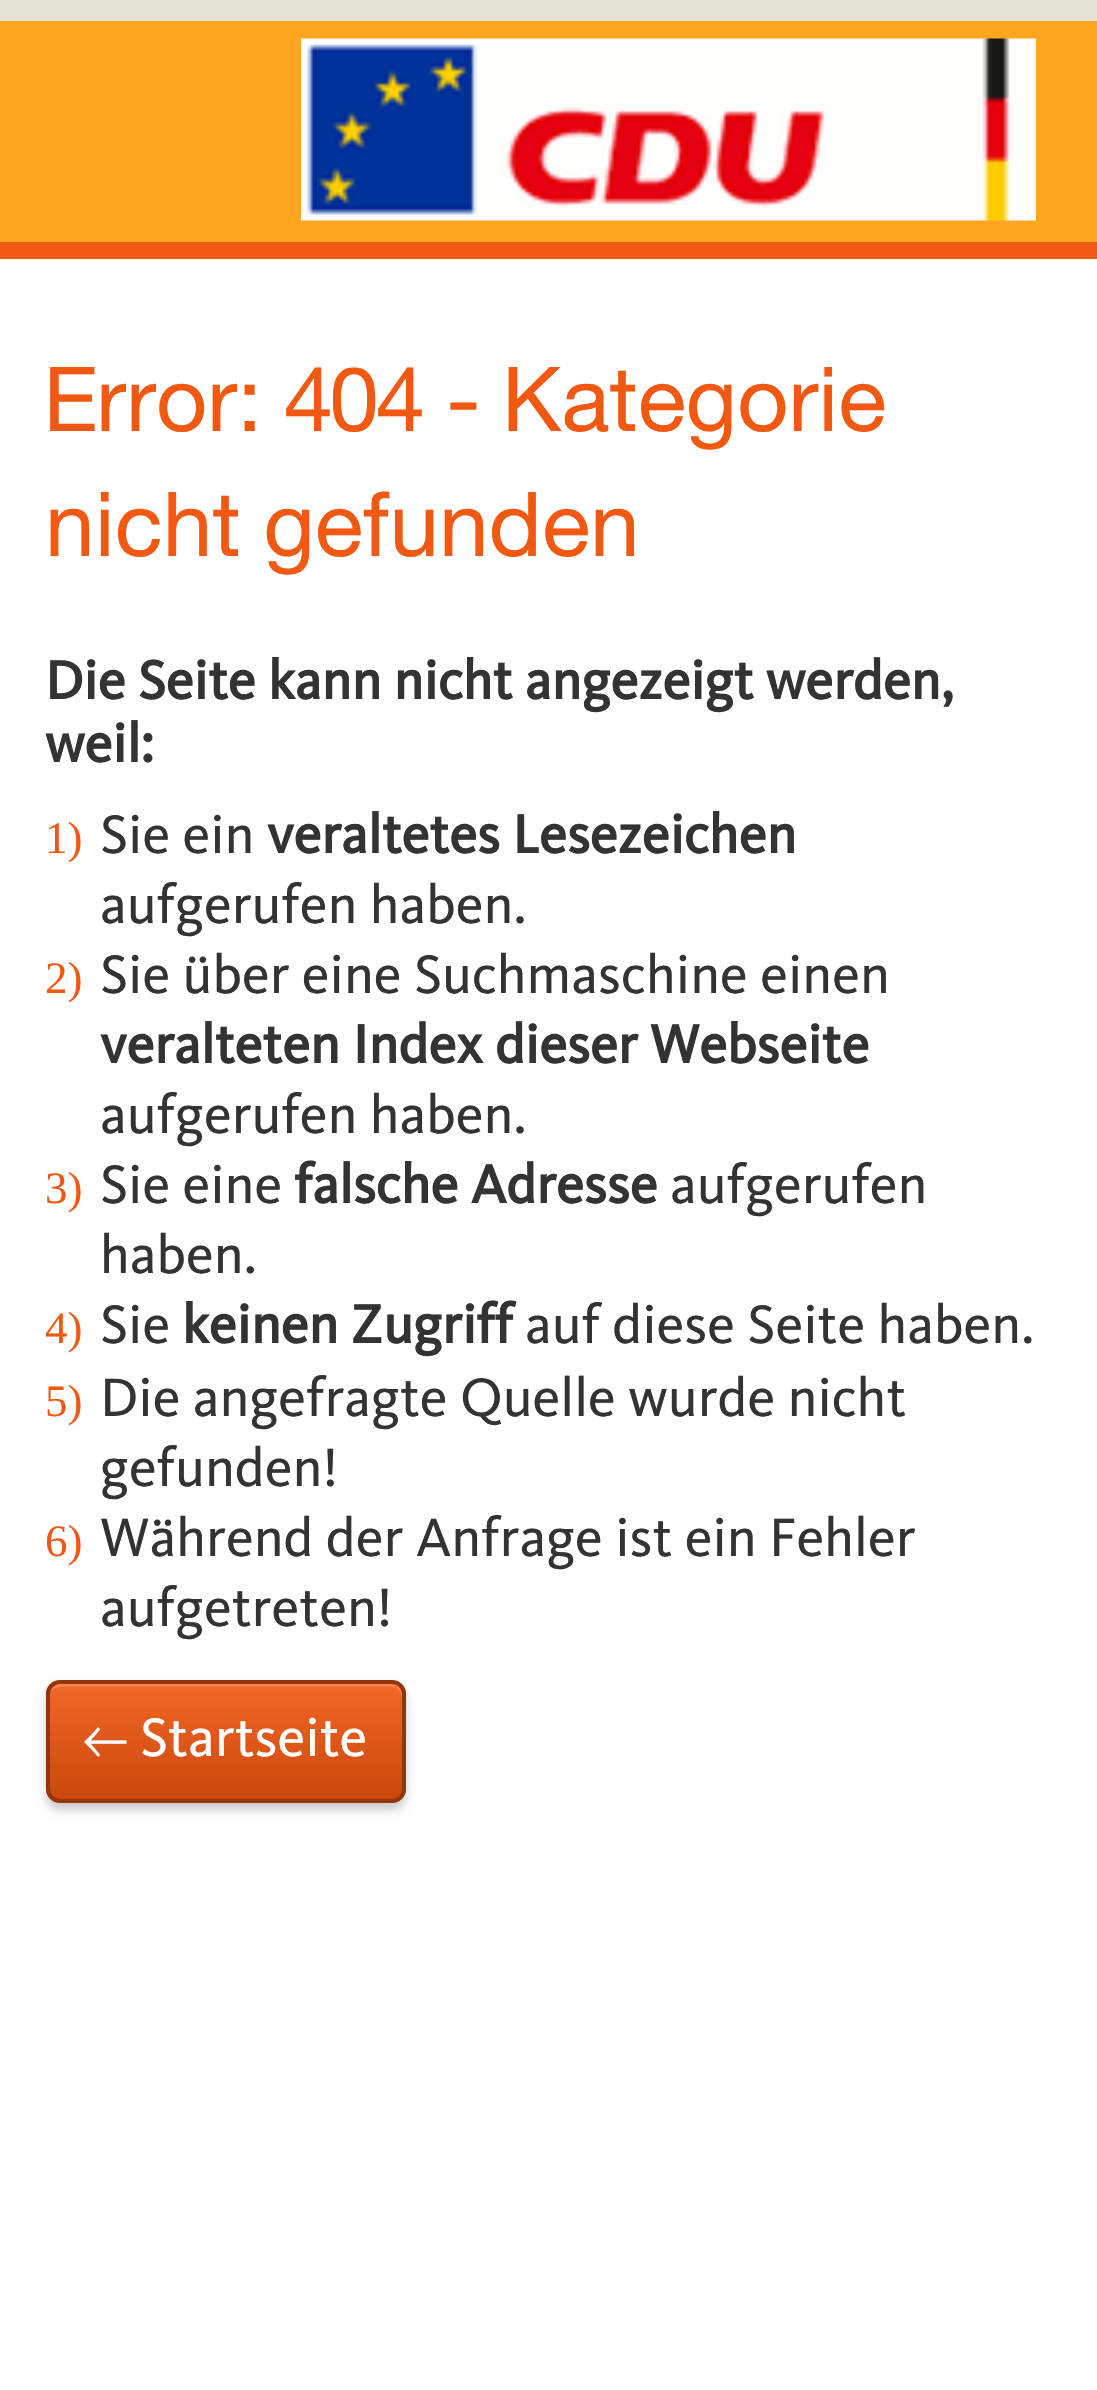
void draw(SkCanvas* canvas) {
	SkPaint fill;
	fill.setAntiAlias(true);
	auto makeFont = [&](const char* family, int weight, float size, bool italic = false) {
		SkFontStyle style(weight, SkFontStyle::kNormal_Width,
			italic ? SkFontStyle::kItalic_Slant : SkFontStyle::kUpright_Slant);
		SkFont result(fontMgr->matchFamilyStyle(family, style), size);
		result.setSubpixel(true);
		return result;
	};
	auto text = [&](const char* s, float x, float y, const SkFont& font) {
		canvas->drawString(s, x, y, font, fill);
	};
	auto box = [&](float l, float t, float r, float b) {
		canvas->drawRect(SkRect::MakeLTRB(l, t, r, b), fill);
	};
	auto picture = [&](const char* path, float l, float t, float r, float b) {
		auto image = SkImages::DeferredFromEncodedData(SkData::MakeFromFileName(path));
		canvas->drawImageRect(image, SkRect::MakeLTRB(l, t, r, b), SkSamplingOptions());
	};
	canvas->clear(0xFFFFFFFF);
	fill.setColor(0xFFE4E2D2);
	box(0, 0, 1097, 21);
	fill.setColor(0xFFFFA51F);
	box(0, 21, 1097, 242);
	fill.setColor(0xFFF15913);
	box(0, 242, 1097, 259);
	picture("image0.png", 301, 38, 1036, 221);
	fill.setColor(0x33000000);
	fill.setMaskFilter(SkMaskFilter::MakeBlur(kNormal_SkBlurStyle, 5));
	canvas->drawRoundRect(SkRect::MakeLTRB(46, 1687, 406, 1810), 14, 14, fill);
	fill.setMaskFilter(nullptr);
	canvas->save();
	canvas->clipPath(SkPathBuilder().moveTo(60, 1680).lineTo(392, 1680).cubicTo(399.5f, 1680, 406, 1686.5f, 406, 1694).lineTo(406, 1789).cubicTo(406, 1796.5f, 399.5f, 1803, 392, 1803).lineTo(60, 1803).cubicTo(52.5f, 1803, 46, 1796.5f, 46, 1789).lineTo(46, 1694).cubicTo(46, 1686.5f, 52.5f, 1680, 60, 1680).close().detach(), true);
	{
		const SkColor colors[] = {0xFFF26726, 0xFFCA480C};
		const float stops[] = {0, 1};
		const SkPoint ends[] = {{226, 1684}, {226, 1799}};
		fill.setShader(SkGradientShader::MakeLinear(ends, colors, stops, 2, SkTileMode::kClamp));
		fill.setAlpha(255);
	}
	box(46, 1684, 406, 1799);
	canvas->restore();
	fill.setShader(nullptr);
	fill.setColor(0x33FFFFFF);
	canvas->drawPath(SkPathBuilder().moveTo(60, 1687).lineTo(392, 1687).cubicTo(405, 1687, 402, 1706, 402, 1714).lineTo(402, 1793).cubicTo(403, 1791, 403, 1790, 403, 1788).lineTo(403, 1695).cubicTo(403, 1689, 398, 1684, 392, 1684).lineTo(60, 1684).cubicTo(54, 1684, 49, 1689, 49, 1695).lineTo(49, 1698).cubicTo(49, 1692, 54, 1687, 60, 1687).close().detach(), fill);
	fill.setStyle(SkPaint::kStroke_Style);
	fill.setStrokeWidth(4);
	fill.setColor(0xFF953509);
	canvas->drawRoundRect(SkRect::MakeLTRB(48, 1682, 404, 1801), 12, 12, fill);
	auto font1 = makeFont("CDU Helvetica", 400, 89.5f);
	fill.setStyle(SkPaint::kFill_Style);
	fill.setColor(0xFFF15913);
	text("Error: 404 - Kategorie", 45, 431, font1);
	text("nicht gefunden", 45, 556, font1);
	auto font2 = makeFont("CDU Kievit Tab", 700, 56);
	fill.setColor(0xFF333333);
	text("Die Seite kann nicht angezeigt werden,", 45, 699, font2);
	text("weil:", 45, 762, font2);
	auto font3 = makeFont("Liberation Serif", 400, 45);
	fill.setColor(0xFFF15913);
	text("1)", 45, 853, font3);
	auto font4 = makeFont("CDU Kievit Tab", 400, 56);
	fill.setColor(0xFF333333);
	text("Sie ein", 100, 853, font4);
	text("veraltetes Lesezeichen", 267, 853, font2);
	text("aufgerufen haben.", 100, 923, font4);
	fill.setColor(0xFFF15913);
	text("2)", 45, 993, font3);
	fill.setColor(0xFF333333);
	text("Sie über eine Suchmaschine einen", 100, 993, font4);
	text("veralteten Index dieser Webseite", 100, 1063, font2);
	text("aufgerufen haben.", 100, 1133, font4);
	fill.setColor(0xFFF15913);
	text("3)", 45, 1203, font3);
	fill.setColor(0xFF333333);
	text("Sie eine", 100, 1203, font4);
	text("falsche Adresse", 294, 1203, font2);
	text("aufgerufen", 670, 1203, font4);
	text("haben.", 100, 1273, font4);
	fill.setColor(0xFFF15913);
	text("4)", 45, 1343, font3);
	fill.setColor(0xFF333333);
	text("Sie", 100, 1343, font4);
	text("keinen Zugriff", 182, 1343, font2);
	text("auf diese Seite haben.", 525, 1343, font4);
	fill.setColor(0xFFF15913);
	text("5)", 45, 1416, font3);
	fill.setColor(0xFF333333);
	text("Die angefragte Quelle wurde nicht", 100, 1416, font4);
	text("gefunden!", 100, 1486, font4);
	fill.setColor(0xFFF15913);
	text("6)", 45, 1556, font3);
	fill.setColor(0xFF333333);
	text("Während der Anfrage ist ein Fehler", 100, 1556, font4);
	text("aufgetreten!", 100, 1626, font4);
	auto font5 = makeFont("FreeSans", 400, 56);
	fill.setColor(0xFFFFFFFF);
	text("←", 83, 1756, font5);
	text("Startseite", 140, 1756, font4);
}
